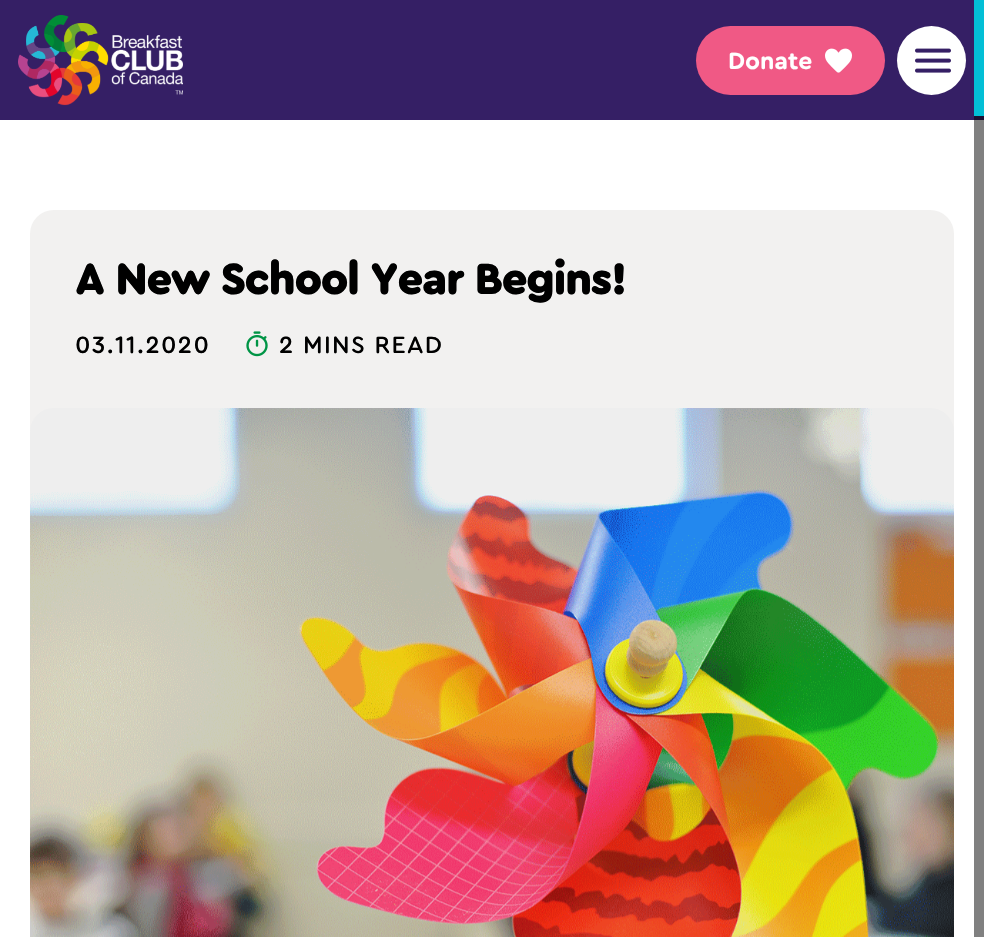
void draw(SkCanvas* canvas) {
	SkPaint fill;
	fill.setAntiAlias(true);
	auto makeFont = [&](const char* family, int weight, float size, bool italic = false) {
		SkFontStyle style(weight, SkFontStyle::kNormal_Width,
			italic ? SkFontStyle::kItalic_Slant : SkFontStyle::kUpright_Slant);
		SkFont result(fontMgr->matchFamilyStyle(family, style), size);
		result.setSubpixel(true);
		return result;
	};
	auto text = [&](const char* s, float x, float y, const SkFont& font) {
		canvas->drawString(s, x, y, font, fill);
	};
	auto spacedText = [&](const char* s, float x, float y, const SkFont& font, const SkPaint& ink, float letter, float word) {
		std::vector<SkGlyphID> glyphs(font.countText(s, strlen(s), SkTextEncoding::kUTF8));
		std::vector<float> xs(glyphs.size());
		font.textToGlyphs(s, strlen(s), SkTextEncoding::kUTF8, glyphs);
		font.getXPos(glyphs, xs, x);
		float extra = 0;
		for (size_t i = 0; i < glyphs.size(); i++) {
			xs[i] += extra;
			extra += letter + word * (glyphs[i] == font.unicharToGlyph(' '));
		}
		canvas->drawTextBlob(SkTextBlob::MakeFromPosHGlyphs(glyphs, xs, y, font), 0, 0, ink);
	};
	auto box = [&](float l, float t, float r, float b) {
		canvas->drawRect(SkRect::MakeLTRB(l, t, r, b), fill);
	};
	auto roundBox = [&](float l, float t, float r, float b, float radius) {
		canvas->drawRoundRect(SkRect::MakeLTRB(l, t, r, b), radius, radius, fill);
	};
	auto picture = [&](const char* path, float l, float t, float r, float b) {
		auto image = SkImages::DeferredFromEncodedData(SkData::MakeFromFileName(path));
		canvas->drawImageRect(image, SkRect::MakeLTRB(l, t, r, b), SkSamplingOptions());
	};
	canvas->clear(0xFFFFFFFF);
	fill.setColor(0xFF808080);
	box(974, 120, 984, 937);
	fill.setColor(0xFF351F65);
	box(0, 0, 974, 120);
	fill.setColor(0xFF1B1033);
	box(974, 116, 984, 120);
	picture("image0.png", 18, 15, 183, 106);
	fill.setColor(0xFFF05985);
	roundBox(696, 26, 885, 95, 34.5f);
	picture("image1.png", 825, 48, 852, 73);
	fill.setColor(0xFFFFFFFF);
	canvas->drawCircle(931.5f, 60.5f, 34.5f, fill);
	picture("image2.png", 915, 48, 951, 73);
	fill.setColor(0xFF03BFD6);
	box(974, 0, 984, 116);
	fill.setColor(0xFFF2F1F0);
	roundBox(30, 210, 954, 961, 24);
	picture("image3.png", 246, 331, 268, 357);
	picture("image4.png", 30, 408, 954, 937);
	auto font1 = makeFont("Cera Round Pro", 700, 24.75f);
	fill.setColor(0xFFFFFFFF);
	text("Donate", 728, 69, font1);
	auto font2 = makeFont("Cera Round Pro", 900, 45.75f);
	fill.setColor(0xFF000000);
	spacedText("A New School Year Begins!", 75, 294, font2, fill, -1.4f, 0);
	auto font3 = makeFont("Cera Round Pro", 500, 24.75f);
	spacedText("03.11.2020", 75, 353, font3, fill, 1.4f, 0);
	spacedText("2 MINS READ", 279, 353, font3, fill, 1.4f, 0);
}
